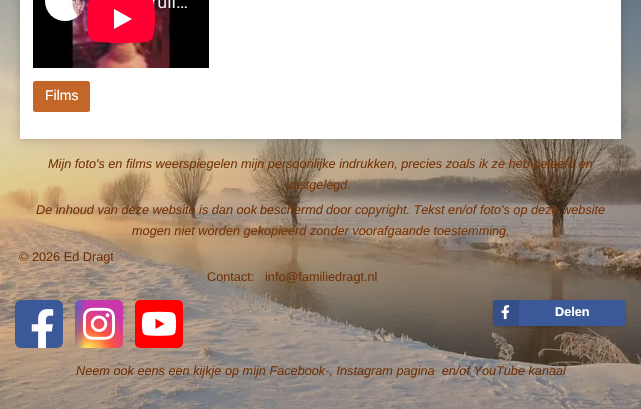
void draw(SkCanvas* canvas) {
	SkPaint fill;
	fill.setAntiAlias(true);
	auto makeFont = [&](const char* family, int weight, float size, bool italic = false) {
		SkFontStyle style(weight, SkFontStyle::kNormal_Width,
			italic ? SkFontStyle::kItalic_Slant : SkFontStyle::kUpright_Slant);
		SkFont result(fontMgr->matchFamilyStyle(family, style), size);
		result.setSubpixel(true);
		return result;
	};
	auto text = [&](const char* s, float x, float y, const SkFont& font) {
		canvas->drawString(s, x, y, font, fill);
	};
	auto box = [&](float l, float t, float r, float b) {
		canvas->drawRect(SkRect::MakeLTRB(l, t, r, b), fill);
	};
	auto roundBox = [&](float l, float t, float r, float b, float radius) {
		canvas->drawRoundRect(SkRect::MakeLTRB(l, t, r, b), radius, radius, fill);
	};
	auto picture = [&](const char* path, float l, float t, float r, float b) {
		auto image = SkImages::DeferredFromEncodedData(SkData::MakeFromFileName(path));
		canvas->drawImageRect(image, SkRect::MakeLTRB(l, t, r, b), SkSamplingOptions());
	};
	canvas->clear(0xFF967045);
	picture("image0.png", 0, 0, 641, 409);
	fill.setColor(0x33000000);
	fill.setMaskFilter(SkMaskFilter::MakeBlur(kNormal_SkBlurStyle, 5));
	canvas->drawRect(SkRect::MakeLTRB(20, -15, 621, 139), fill);
	fill.setMaskFilter(nullptr);
	fill.setColor(0xFFFFFFFF);
	box(20, 0, 621, 139);
	picture("image1.png", 33, 0, 209, 68);
	fill.setColor(0xFFC46627);
	roundBox(33, 81, 90, 112, 2.5f);
	fill.setColor(0xFF3B5998);
	roundBox(15, 300, 63, 348, 6);
	picture("image2.png", 31, 309, 54, 348);
	{
		const SkColor colors[] = {0xFFFFDD55, 0xFFFFDD55, 0xFFFF543E, 0xFFC837AB};
		const float stops[] = {0, 0.1f, 0.5f, 1};
		SkMatrix m = SkMatrix::Translate(88, 351).preScale(47, 44);
		fill.setShader(SkGradientShader::MakeRadial({0, 0}, 1, colors, stops, 4, SkTileMode::kClamp, 0, &m));
		fill.setAlpha(255);
	}
	roundBox(75, 300, 123, 348, 5);
	{
		const SkColor colors[] = {0xFF3771C8, 0xFF3771C8, 0x003771C8};
		const float stops[] = {0, 0.13f, 1};
		SkMatrix m = SkMatrix::Translate(67, 303).preScale(21, 86);
		fill.setShader(SkGradientShader::MakeRadial({0, 0}, 1, colors, stops, 3, SkTileMode::kClamp, 0, &m));
		fill.setAlpha(255);
	}
	roundBox(75, 300, 123, 348, 5);
	picture("image3.png", 83, 307, 115, 340);
	fill.setShader(nullptr);
	fill.setColor(0xFFFF0000);
	roundBox(135, 300, 183, 348, 5);
	picture("image4.png", 141, 311, 177, 336);
	fill.setColor(0x33000000);
	fill.setMaskFilter(SkMaskFilter::MakeBlur(kNormal_SkBlurStyle, 1.5f));
	canvas->drawRoundRect(SkRect::MakeLTRB(493, 301, 626, 327), 3, 3, fill);
	fill.setMaskFilter(nullptr);
	fill.setColor(0xFF3B5998);
	roundBox(493, 300, 626, 326, 3);
	fill.setColor(0x1A000000);
	canvas->drawPath(SkPathBuilder().moveTo(496, 300).lineTo(519, 300).lineTo(519, 326).lineTo(496, 326).cubicTo(494.5f, 326, 493, 324.5f, 493, 323).lineTo(493, 303).cubicTo(493, 301.5f, 494.5f, 300, 496, 300).close().detach(), fill);
	picture("image5.png", 501, 305, 510, 320);
	auto font1 = makeFont("Liberation Sans", 400, 14);
	fill.setColor(0xFFFFFFFF);
	text("Films", 45, 100, font1);
	auto font2 = makeFont("Liberation Sans", 400, 12.7f, true);
	fill.setColor(0xFF773508);
	text("Mijn foto's en films weerspiegelen mijn persoonlijke indrukken, precies zoals ik ze heb beleefd en", 48, 168, font2);
	text("vastgelegd.", 286, 189, font2);
	text("De inhoud van deze website is dan ook", 36, 214, font2);
	fill.setColor(0xFF703309);
	text("beschermd", 260, 214, font2);
	fill.setColor(0xFF773508);
	text("door copyright. Tekst en/of foto's op deze website", 326, 214, font2);
	text("mogen niet worden gekopieerd zonder voorafgaande toestemming.", 132, 235, font2);
	auto font3 = makeFont("Liberation Sans", 400, 12.7f);
	fill.setColor(0xFF703309);
	text("© 2026 Ed Dragt", 19, 261, font3);
	text("Contact:", 207, 281, font3);
	text("info@familiedragt.nl", 265, 281, font3);
	auto font4 = makeFont("Liberation Sans", 700, 12.7f);
	fill.setColor(0xFFFFFFFF);
	text("Delen", 555, 316, font4);
	fill.setColor(0xFF703309);
	text("Neem ook eens een kijkje op mijn Facebook-, Instagram pagina  en/of YouTube kanaal", 76, 375, font2);
}
